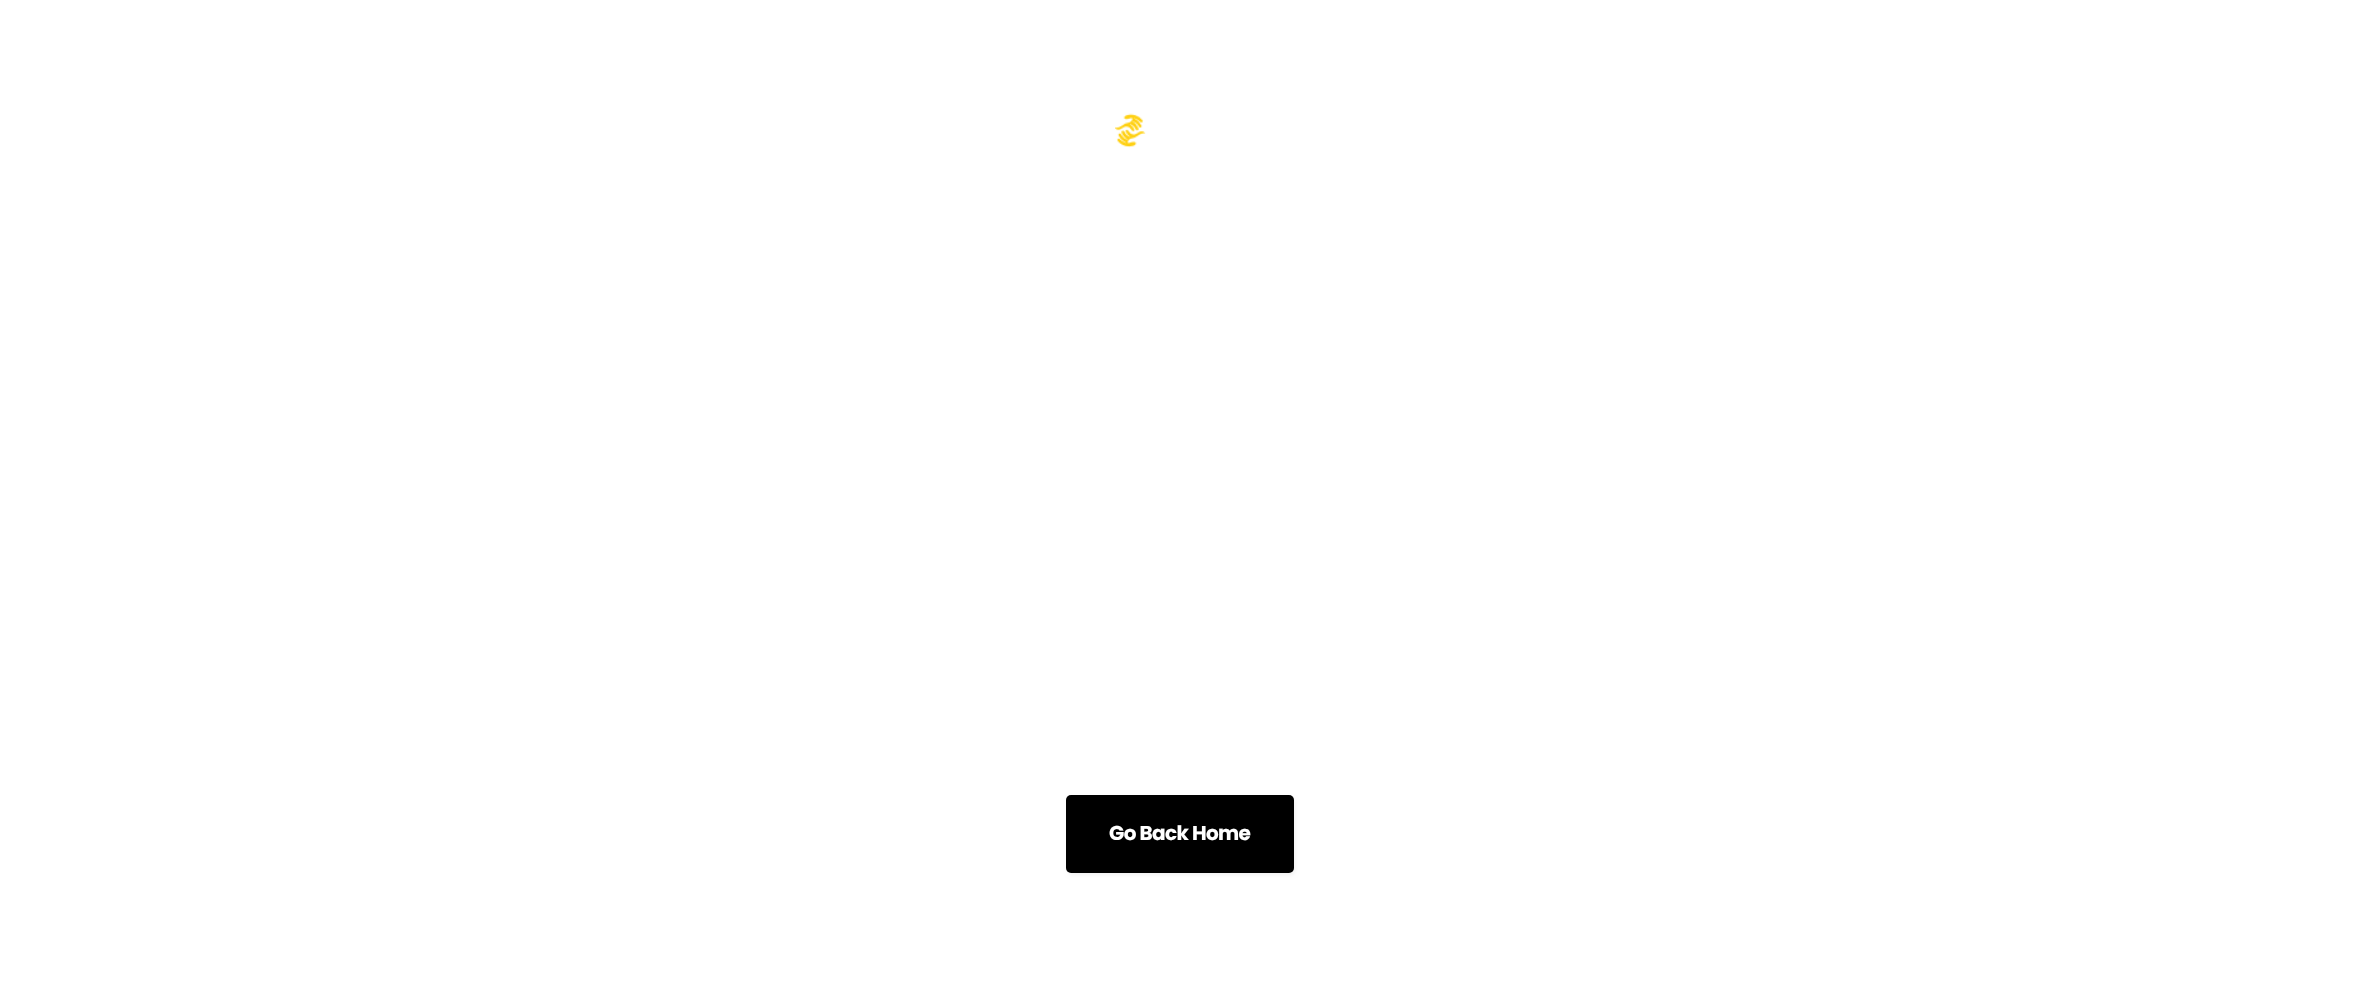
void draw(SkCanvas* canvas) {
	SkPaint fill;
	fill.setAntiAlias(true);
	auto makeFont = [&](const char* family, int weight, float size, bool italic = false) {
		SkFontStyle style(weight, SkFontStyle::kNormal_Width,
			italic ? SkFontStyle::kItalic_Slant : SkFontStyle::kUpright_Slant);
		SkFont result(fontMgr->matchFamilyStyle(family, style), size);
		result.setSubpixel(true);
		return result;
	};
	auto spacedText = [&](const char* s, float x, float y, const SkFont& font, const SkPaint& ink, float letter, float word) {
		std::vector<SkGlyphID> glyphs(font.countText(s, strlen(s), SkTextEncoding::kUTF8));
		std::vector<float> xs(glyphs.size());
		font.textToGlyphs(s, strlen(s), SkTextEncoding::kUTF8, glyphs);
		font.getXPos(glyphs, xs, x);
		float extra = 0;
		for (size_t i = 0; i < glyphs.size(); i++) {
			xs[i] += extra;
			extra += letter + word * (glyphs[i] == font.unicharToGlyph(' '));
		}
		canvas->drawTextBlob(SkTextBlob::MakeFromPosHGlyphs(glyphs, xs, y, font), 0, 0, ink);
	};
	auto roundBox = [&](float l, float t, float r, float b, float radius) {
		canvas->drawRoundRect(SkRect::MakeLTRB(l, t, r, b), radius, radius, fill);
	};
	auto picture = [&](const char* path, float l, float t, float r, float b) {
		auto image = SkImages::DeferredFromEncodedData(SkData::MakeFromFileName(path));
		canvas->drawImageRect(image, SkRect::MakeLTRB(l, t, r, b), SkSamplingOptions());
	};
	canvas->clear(0xFFFFFFFF);
	picture("image0.png", 1115, 113, 1146, 148);
	fill.setColor(0x0F000000);
	fill.setMaskFilter(SkMaskFilter::MakeBlur(kNormal_SkBlurStyle, 2));
	canvas->drawRoundRect(SkRect::MakeLTRB(1068, 798, 1295, 875), 5, 5, fill);
	fill.setMaskFilter(nullptr);
	fill.setColor(0xFF000000);
	roundBox(1066, 795, 1294, 873, 5);
	auto font1 = makeFont("Poppins", 700, 20);
	fill.setColor(0xFFFFFFFF);
	spacedText("Go Back Home", 1109, 840, font1, fill, -0.6f, 0);
}
